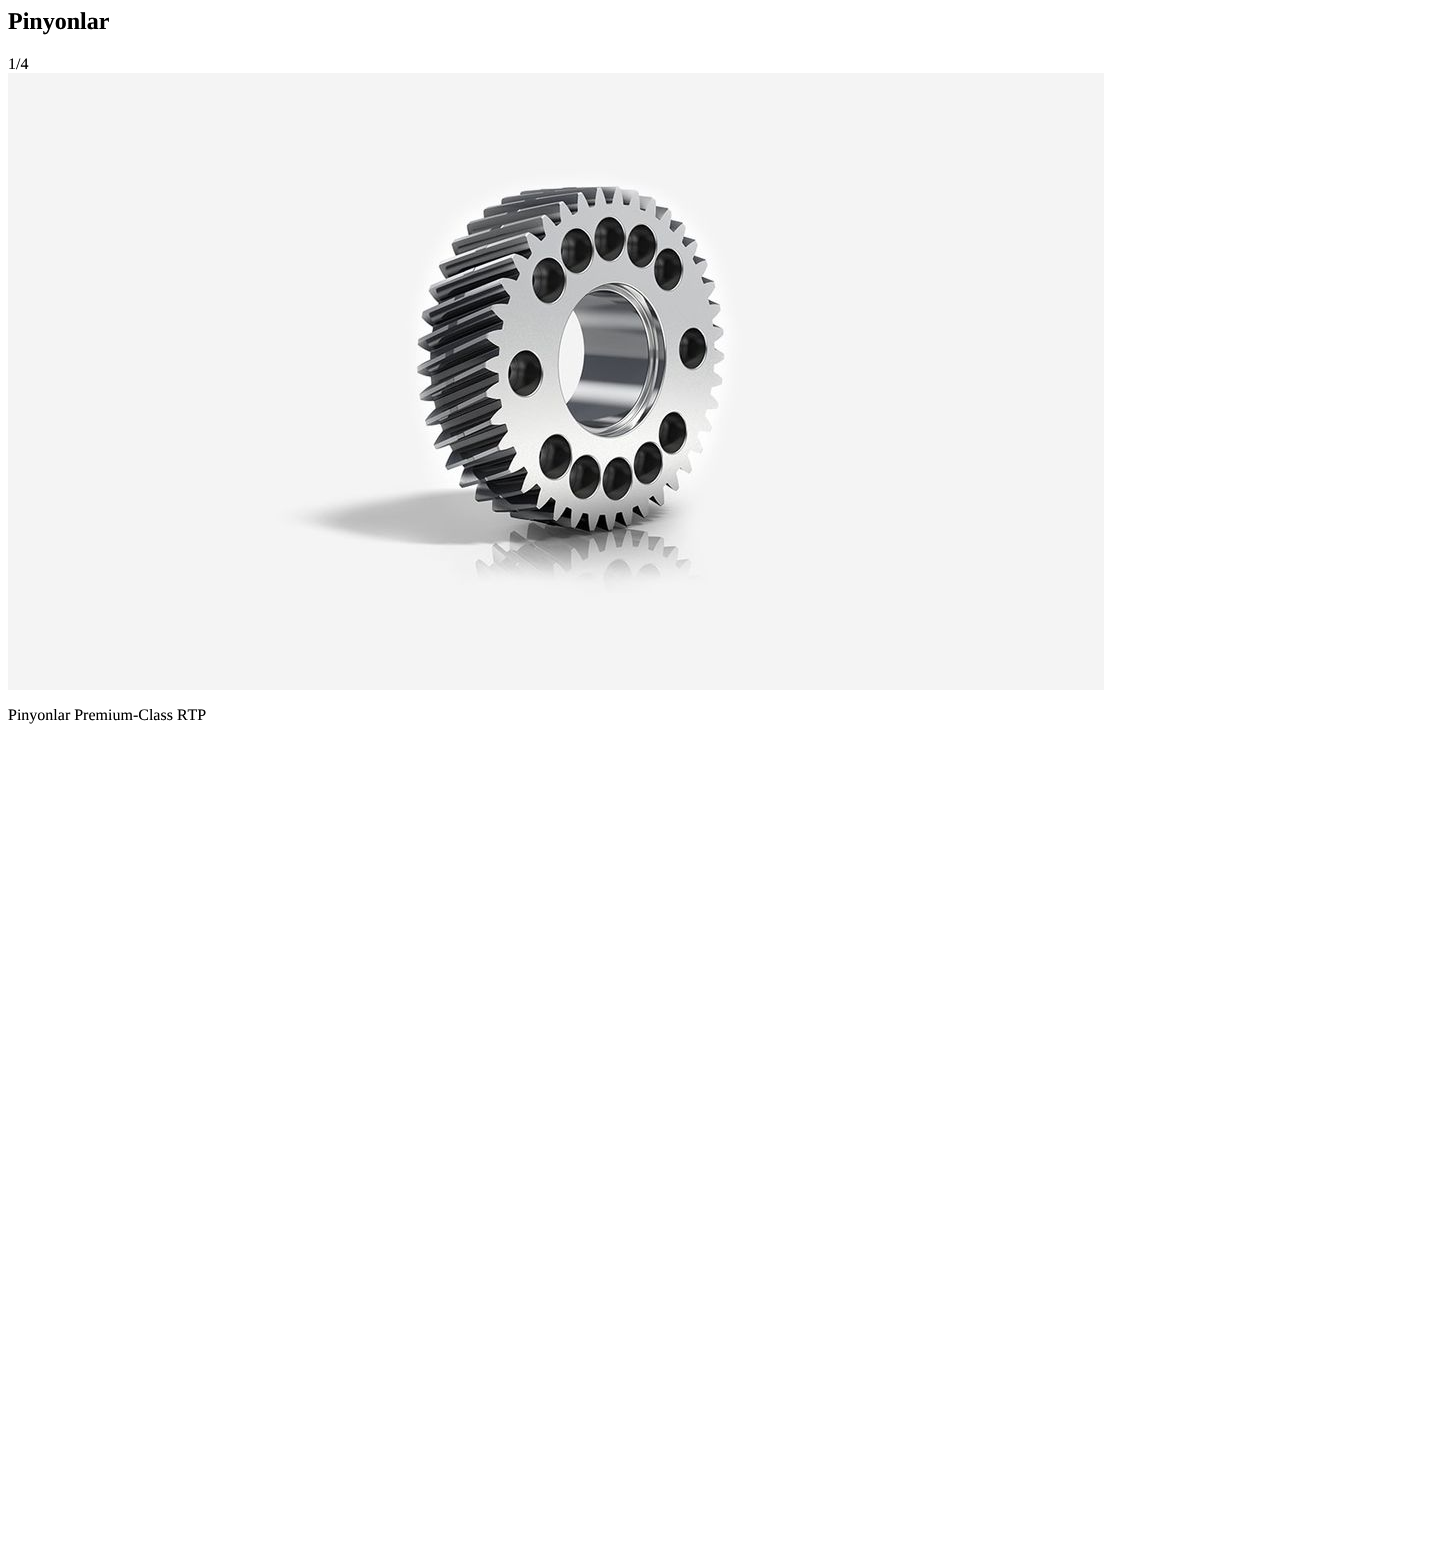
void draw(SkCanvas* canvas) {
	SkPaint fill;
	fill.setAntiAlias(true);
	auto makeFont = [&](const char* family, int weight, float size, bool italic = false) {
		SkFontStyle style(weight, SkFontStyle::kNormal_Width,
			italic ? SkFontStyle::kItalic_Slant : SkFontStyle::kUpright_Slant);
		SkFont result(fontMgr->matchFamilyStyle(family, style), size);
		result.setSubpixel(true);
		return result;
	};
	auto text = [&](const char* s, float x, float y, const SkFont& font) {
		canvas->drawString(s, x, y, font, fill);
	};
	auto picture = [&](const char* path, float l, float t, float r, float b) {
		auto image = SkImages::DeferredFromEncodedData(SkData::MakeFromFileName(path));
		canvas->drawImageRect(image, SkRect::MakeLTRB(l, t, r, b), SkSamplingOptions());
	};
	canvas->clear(0xFFFFFFFF);
	picture("image0.png", 8, 73, 1104, 690);
	auto font1 = makeFont("Liberation Serif", 700, 24);
	fill.setColor(0xFF000000);
	text("Pinyonlar", 8, 29, font1);
	auto font2 = makeFont("Liberation Serif", 400, 16);
	text("1/4", 8, 69, font2);
	text("Pinyonlar Premium-Class RTP", 8, 720, font2);
}
